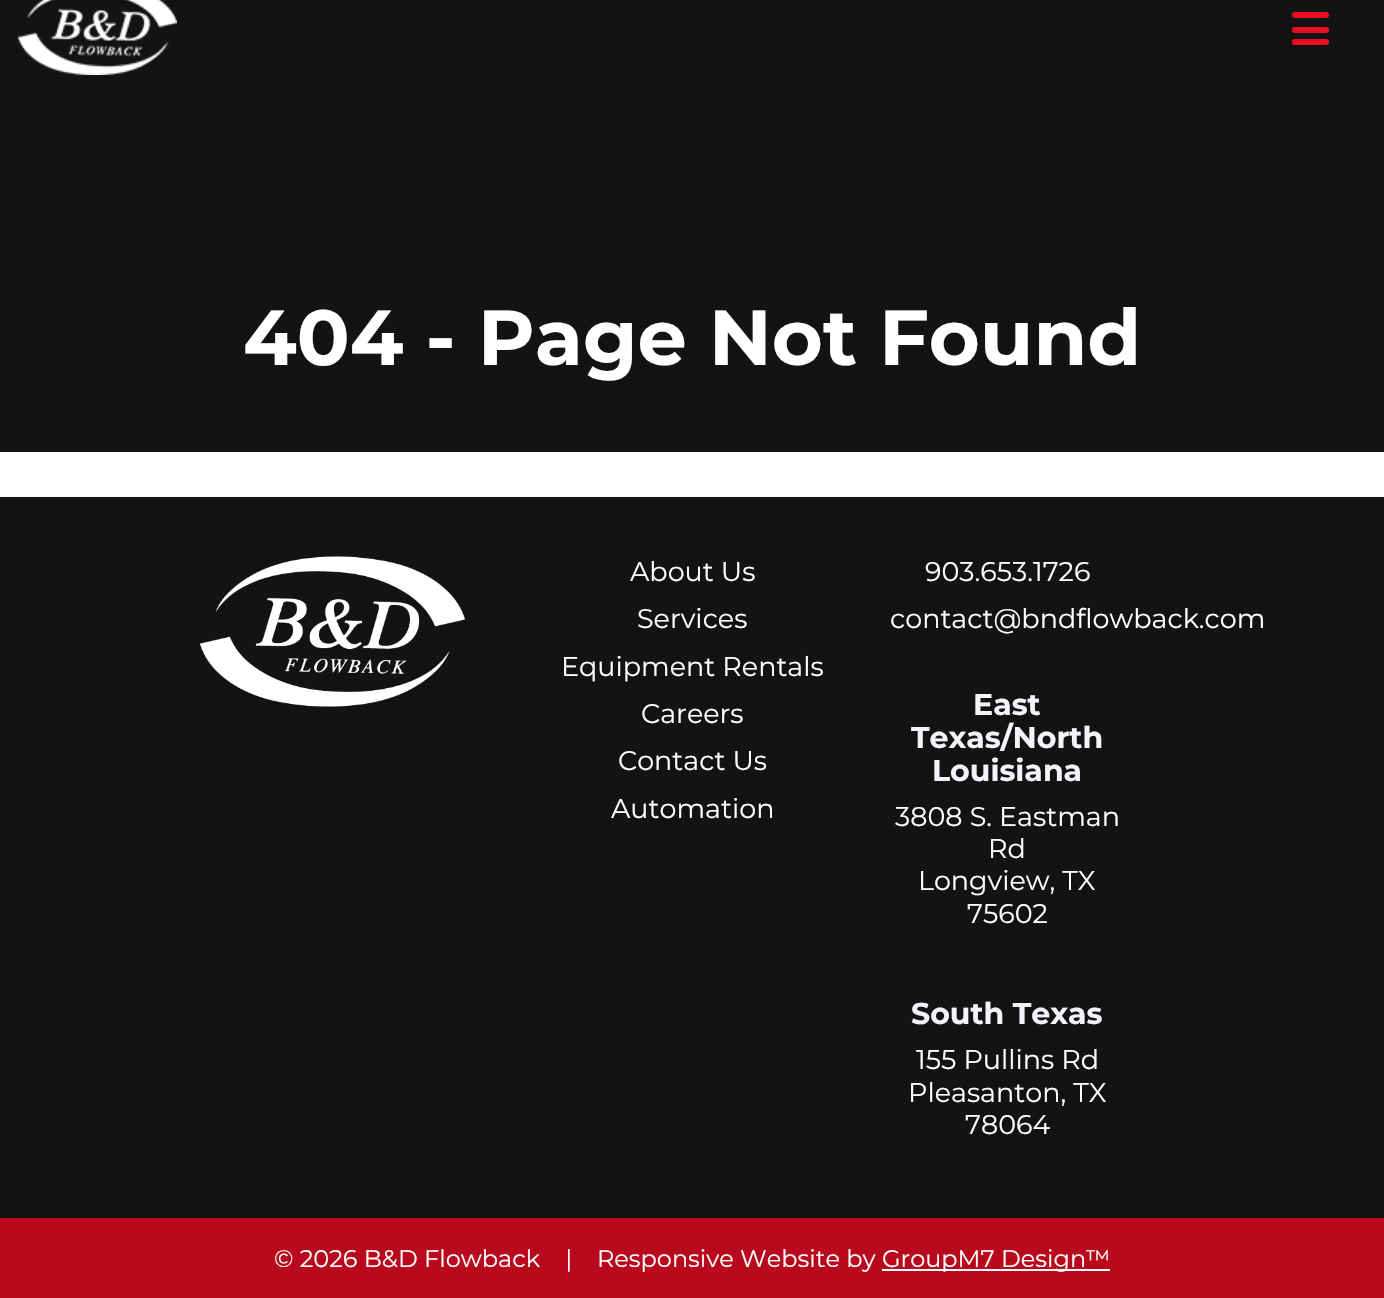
void draw(SkCanvas* canvas) {
	SkPaint fill;
	fill.setAntiAlias(true);
	auto makeFont = [&](const char* family, int weight, float size, bool italic = false) {
		SkFontStyle style(weight, SkFontStyle::kNormal_Width,
			italic ? SkFontStyle::kItalic_Slant : SkFontStyle::kUpright_Slant);
		SkFont result(fontMgr->matchFamilyStyle(family, style), size);
		result.setSubpixel(true);
		return result;
	};
	auto text = [&](const char* s, float x, float y, const SkFont& font) {
		canvas->drawString(s, x, y, font, fill);
	};
	auto box = [&](float l, float t, float r, float b) {
		canvas->drawRect(SkRect::MakeLTRB(l, t, r, b), fill);
	};
	auto roundBox = [&](float l, float t, float r, float b, float radius) {
		canvas->drawRoundRect(SkRect::MakeLTRB(l, t, r, b), radius, radius, fill);
	};
	auto picture = [&](const char* path, float l, float t, float r, float b) {
		auto image = SkImages::DeferredFromEncodedData(SkData::MakeFromFileName(path));
		canvas->drawImageRect(image, SkRect::MakeLTRB(l, t, r, b), SkSamplingOptions());
	};
	canvas->clear(0xFFFFFFFF);
	fill.setColor(0xFF131313);
	box(0, 0, 1384, 452);
	picture("image0.png", 18, 0, 177, 75);
	fill.setColor(0xFFEA0C25);
	roundBox(1292, 12, 1329, 18, 3);
	roundBox(1292, 27, 1329, 33, 3);
	roundBox(1292, 39, 1329, 45, 3);
	fill.setColor(0xFF131313);
	box(0, 497, 1384, 1218);
	picture("image1.png", 199, 556, 465, 707);
	fill.setColor(0xFFB90A1D);
	box(0, 1218, 1384, 1298);
	fill.setColor(0xFFFFFFFF);
	box(882, 1269, 1110, 1271);
	auto font1 = makeFont("Montserrat", 700, 78);
	text("404 - Page Not Found", 243, 365, font1);
	auto font2 = makeFont("Montserrat", 400, 27);
	text("About Us", 630, 581, font2);
	text("Services", 637, 628, font2);
	text("Equipment Rentals", 561, 676, font2);
	text("Careers", 641, 723, font2);
	text("Contact Us", 618, 770, font2);
	text("Automation", 611, 818, font2);
	text("903.653.1726", 925, 581, font2);
	text("contact@bndflowback.com", 890, 628, font2);
	auto font3 = makeFont("Montserrat", 700, 30);
	fill.setColor(0xFFF2F4FA);
	text("East", 973, 715, font3);
	text("Texas/North", 911, 748, font3);
	text("Louisiana", 932, 781, font3);
	fill.setColor(0xFFFFFFFF);
	text("3808 S. Eastman", 895, 826, font2);
	text("Rd", 988, 858, font2);
	text("Longview, TX", 918, 890, font2);
	text("75602", 967, 923, font2);
	fill.setColor(0xFFF2F4FA);
	text("South Texas", 911, 1024, font3);
	fill.setColor(0xFFFFFFFF);
	text("155 Pullins Rd", 916, 1069, font2);
	text("Pleasanton, TX", 908, 1102, font2);
	text("78064", 965, 1134, font2);
	auto font4 = makeFont("Montserrat", 400, 24);
	text("© 2026 B&D Flowback    |", 274, 1267, font4);
	text("Responsive Website by", 597, 1267, font4);
	text("GroupM7 Design™", 882, 1267, font4);
}
